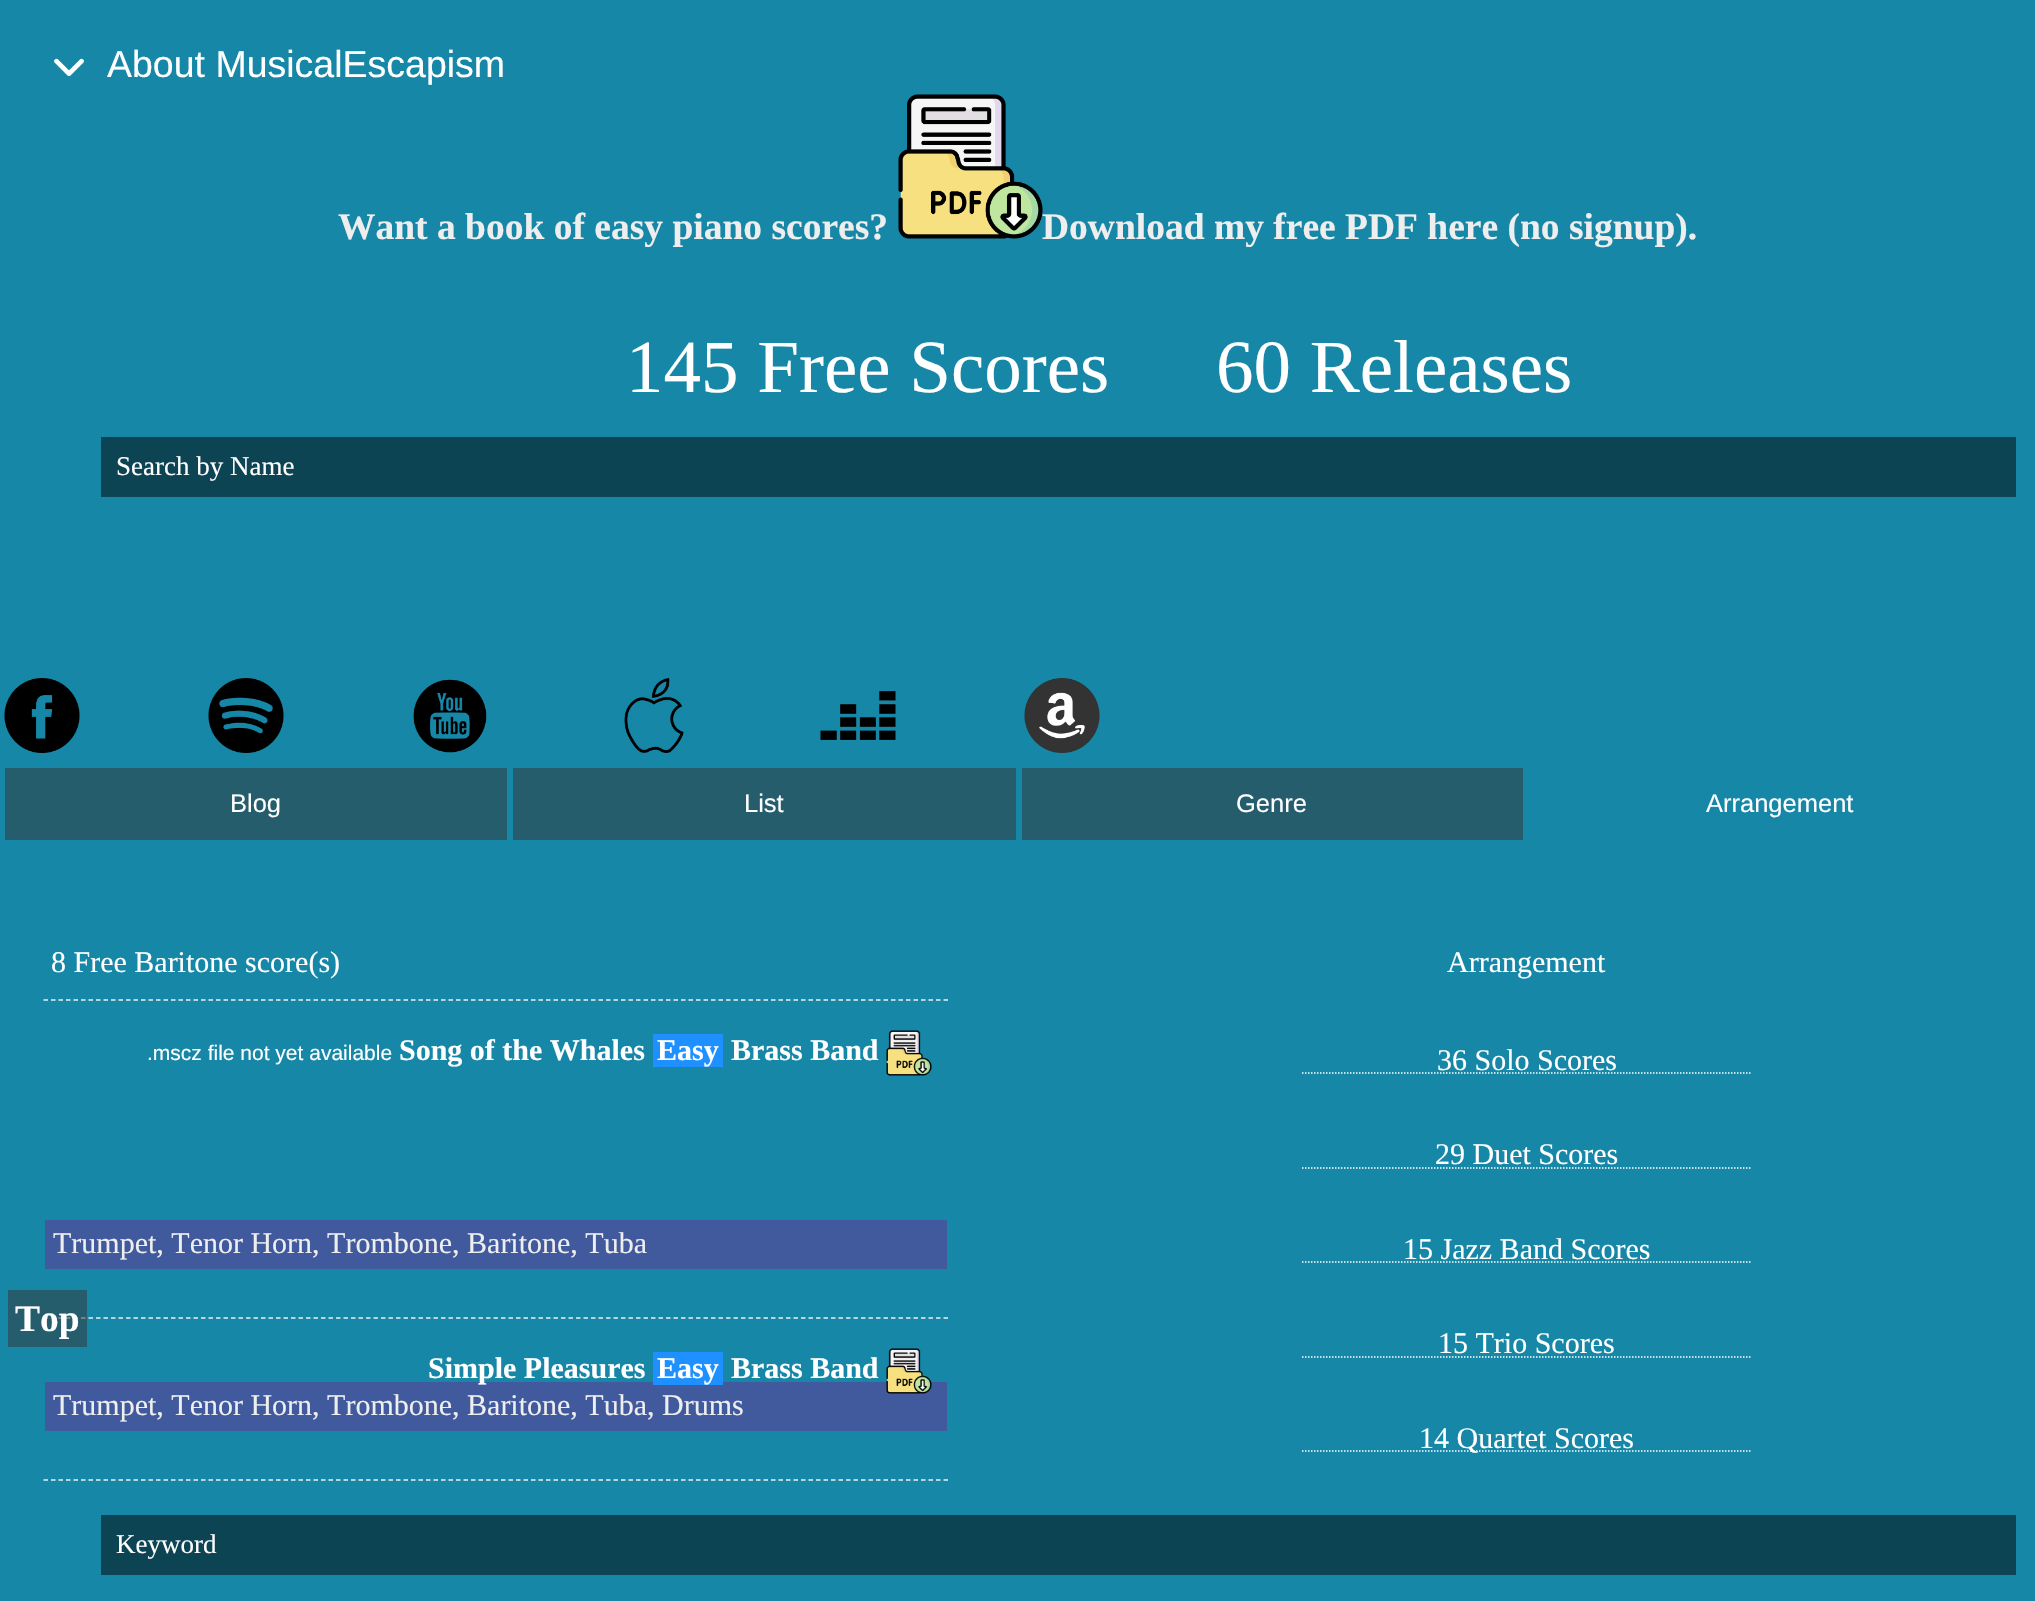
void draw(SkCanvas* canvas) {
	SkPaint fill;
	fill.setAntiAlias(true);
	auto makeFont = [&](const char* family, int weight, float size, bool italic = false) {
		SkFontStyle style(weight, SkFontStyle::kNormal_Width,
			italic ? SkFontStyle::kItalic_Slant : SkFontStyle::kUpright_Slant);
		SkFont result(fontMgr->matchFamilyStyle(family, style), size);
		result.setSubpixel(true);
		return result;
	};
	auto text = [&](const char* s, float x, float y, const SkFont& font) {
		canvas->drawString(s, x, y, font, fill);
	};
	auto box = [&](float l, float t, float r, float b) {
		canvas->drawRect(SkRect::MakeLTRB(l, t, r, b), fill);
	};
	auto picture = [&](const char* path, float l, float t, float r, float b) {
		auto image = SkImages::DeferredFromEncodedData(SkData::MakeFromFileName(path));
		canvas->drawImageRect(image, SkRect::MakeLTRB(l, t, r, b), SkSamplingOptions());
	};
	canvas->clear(0xFF1687A7);
	picture("image0.png", 54, 58, 84, 76);
	picture("image1.png", 898, 94, 1043, 239);
	fill.setColor(0xFF0D4454);
	box(101, 437, 2016, 497);
	picture("image2.png", 4, 678, 80, 753);
	picture("image3.png", 208, 678, 284, 753);
	picture("image4.png", 413, 679, 487, 753);
	picture("image5.png", 624, 678, 684, 753);
	picture("image6.png", 820, 691, 896, 740);
	picture("image7.png", 1024, 678, 1100, 753);
	fill.setColor(0xFF255D6D);
	box(5, 768, 507, 840);
	box(513, 768, 1016, 840);
	box(1022, 768, 1523, 840);
	fill.setStyle(SkPaint::kStroke_Style);
	fill.setStrokeWidth(1.5f);
	fill.setColor(0xFFEEEEEE);
	fill.setPathEffect(SkDashPathEffect::Make({{4.5f, 3}}, 0));
	canvas->drawPath(SkPathBuilder().moveTo(43.5f, 1318).lineTo(948, 1318).detach(), fill);
	fill.setPathEffect(nullptr);
	fill.setStyle(SkPaint::kFill_Style);
	fill.setColor(0x80333333);
	box(8, 1290, 87, 1347);
	fill.setStyle(SkPaint::kStroke_Style);
	fill.setColor(0xFFEEEEEE);
	fill.setPathEffect(SkDashPathEffect::Make({{4.5f, 3}}, 0));
	canvas->drawPath(SkPathBuilder().moveTo(43.5f, 1000).lineTo(948, 1000).detach(), fill);
	fill.setPathEffect(nullptr);
	fill.setStyle(SkPaint::kFill_Style);
	fill.setColor(0xFF1E90FF);
	box(653, 1034, 723, 1067);
	picture("image8.png", 886, 1030, 932, 1076);
	fill.setColor(0xFF415A9E);
	box(45, 1220, 947, 1269);
	box(45, 1382, 947, 1431);
	fill.setColor(0xFF1E90FF);
	box(653, 1352, 723, 1385);
	picture("image9.png", 886, 1348, 932, 1394);
	fill.setStyle(SkPaint::kStroke_Style);
	fill.setColor(0xFFEEEEEE);
	fill.setPathEffect(SkDashPathEffect::Make({{4.5f, 3}}, 0));
	canvas->drawPath(SkPathBuilder().moveTo(43.5f, 1480).lineTo(948, 1480).detach(), fill);
	fill.setPathEffect(nullptr);
	fill.setColor(0xFFFFFFFF);
	fill.setPathEffect(SkDashPathEffect::Make({{1.5f, 1.5f}}, 0));
	canvas->drawPath(SkPathBuilder().moveTo(1302, 1073).lineTo(1752, 1073).detach(), fill);
	fill.setPathEffect(nullptr);
	fill.setPathEffect(SkDashPathEffect::Make({{1.5f, 1.5f}}, 0));
	canvas->drawPath(SkPathBuilder().moveTo(1302, 1168).lineTo(1752, 1168).detach(), fill);
	fill.setPathEffect(nullptr);
	fill.setPathEffect(SkDashPathEffect::Make({{1.5f, 1.5f}}, 0));
	canvas->drawPath(SkPathBuilder().moveTo(1302, 1262).lineTo(1752, 1262).detach(), fill);
	fill.setPathEffect(nullptr);
	fill.setPathEffect(SkDashPathEffect::Make({{1.5f, 1.5f}}, 0));
	canvas->drawPath(SkPathBuilder().moveTo(1302, 1357).lineTo(1752, 1357).detach(), fill);
	fill.setPathEffect(nullptr);
	fill.setPathEffect(SkDashPathEffect::Make({{1.5f, 1.5f}}, 0));
	canvas->drawPath(SkPathBuilder().moveTo(1302, 1451).lineTo(1752, 1451).detach(), fill);
	fill.setPathEffect(nullptr);
	fill.setStyle(SkPaint::kFill_Style);
	fill.setColor(0xFF0D4454);
	box(101, 1515, 2016, 1575);
	auto font1 = makeFont("Liberation Sans", 400, 37.5f);
	fill.setColor(0xFFFFFFFF);
	text("About MusicalEscapism", 107, 77, font1);
	auto font2 = makeFont("Liberation Serif", 700, 37.5f);
	fill.setColor(0xFFEEEEEE);
	text("Want a book of easy piano scores?", 338, 239, font2);
	text("Download my free PDF here (no signup).", 1042, 239, font2);
	auto font3 = makeFont("Liberation Serif", 400, 75);
	fill.setColor(0xFFFFFFFF);
	text("145 Free Scores", 626, 392, font3);
	text("60 Releases", 1216, 392, font3);
	auto font4 = makeFont("Liberation Serif", 400, 27);
	text("Search by Name", 116, 475, font4);
	auto font5 = makeFont("Liberation Sans", 400, 25.5f);
	text("Blog", 230, 812, font5);
	text("List", 744, 812, font5);
	text("Genre", 1236, 812, font5);
	text("Arrangement", 1706, 812, font5);
	text("Top", 15, 1331, font2);
	auto font6 = makeFont("Liberation Serif", 400, 30);
	text("8 Free Baritone score(s)", 51, 972, font6);
	auto font7 = makeFont("Liberation Sans", 400, 21);
	text(".mscz file not yet available", 147, 1060, font7);
	auto font8 = makeFont("Liberation Serif", 700, 30);
	text("Song of the Whales", 399, 1060, font8);
	text("Easy", 657, 1060, font8);
	text("Brass Band", 731, 1060, font8);
	fill.setColor(0xFFEEEEEE);
	text("Trumpet, Tenor Horn, Trombone, Baritone, Tuba", 53, 1253, font6);
	fill.setColor(0xFFFFFFFF);
	text("Simple Pleasures", 428, 1378, font8);
	text("Easy", 657, 1378, font8);
	text("Brass Band", 731, 1378, font8);
	fill.setColor(0xFFEEEEEE);
	text("Trumpet, Tenor Horn, Trombone, Baritone, Tuba, Drums", 53, 1415, font6);
	fill.setColor(0xFFFFFFFF);
	text("Arrangement", 1447, 972, font6);
	text("36 Solo Scores", 1437, 1070, font6);
	text("29 Duet Scores", 1435, 1164, font6);
	text("15 Jazz Band Scores", 1403, 1259, font6);
	text("15 Trio Scores", 1438, 1353, font6);
	text("14 Quartet Scores", 1419, 1448, font6);
	text("Keyword", 116, 1553, font4);
}
